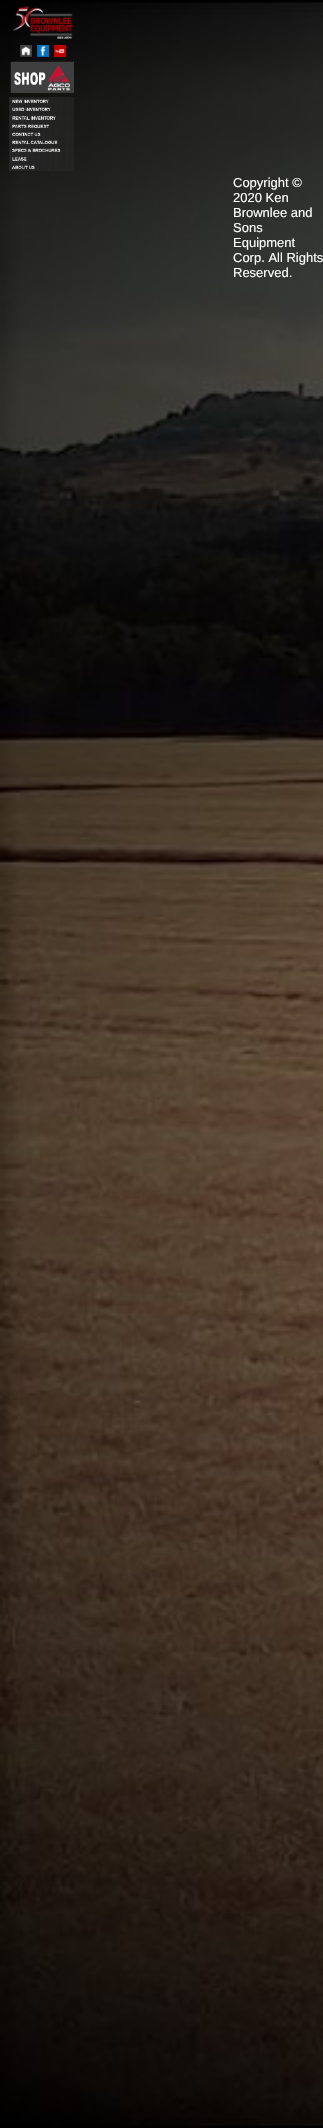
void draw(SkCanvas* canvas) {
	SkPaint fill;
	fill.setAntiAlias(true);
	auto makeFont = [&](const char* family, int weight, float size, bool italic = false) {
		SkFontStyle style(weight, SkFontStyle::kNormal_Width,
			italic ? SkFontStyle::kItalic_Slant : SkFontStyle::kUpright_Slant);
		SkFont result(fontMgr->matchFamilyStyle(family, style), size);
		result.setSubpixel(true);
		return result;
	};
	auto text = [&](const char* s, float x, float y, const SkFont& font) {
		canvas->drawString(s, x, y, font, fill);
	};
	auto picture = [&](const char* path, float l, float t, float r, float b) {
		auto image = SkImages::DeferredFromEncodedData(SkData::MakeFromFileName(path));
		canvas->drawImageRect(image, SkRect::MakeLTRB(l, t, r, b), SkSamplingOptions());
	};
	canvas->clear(0xFFFFFFFF);
	picture("image0.png", 0, 0, 323, 2128);
	picture("image1.png", 13, 6, 74, 39);
	picture("image2.png", 20, 45, 32, 57);
	picture("image3.png", 37, 45, 49, 57);
	picture("image4.png", 54, 45, 66, 57);
	picture("image5.png", 10, 61, 74, 93);
	picture("image6.png", 9, 97, 74, 105);
	picture("image7.png", 9, 105, 74, 113);
	picture("image8.png", 9, 113, 74, 122);
	picture("image9.png", 9, 122, 74, 130);
	picture("image10.png", 9, 130, 74, 138);
	picture("image11.png", 9, 138, 74, 146);
	picture("image12.png", 9, 146, 74, 154);
	picture("image13.png", 9, 154, 74, 163);
	picture("image14.png", 9, 163, 74, 171);
	auto font1 = makeFont("Liberation Sans", 400, 13);
	fill.setColor(0xFFFFFFFF);
	text("Copyright ©", 233, 187, font1);
	text("2020 Ken", 233, 202, font1);
	text("Brownlee and", 233, 217, font1);
	text("Sons", 233, 232, font1);
	text("Equipment", 233, 247, font1);
	text("Corp. All Rights", 233, 262, font1);
	text("Reserved.", 233, 277, font1);
}
